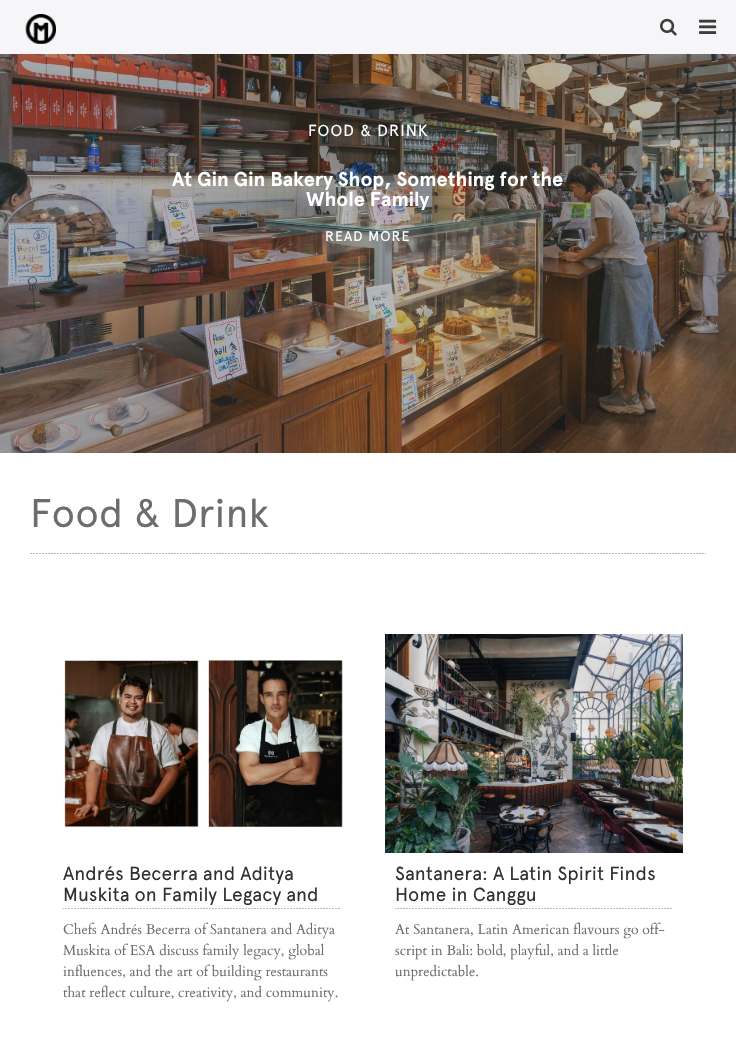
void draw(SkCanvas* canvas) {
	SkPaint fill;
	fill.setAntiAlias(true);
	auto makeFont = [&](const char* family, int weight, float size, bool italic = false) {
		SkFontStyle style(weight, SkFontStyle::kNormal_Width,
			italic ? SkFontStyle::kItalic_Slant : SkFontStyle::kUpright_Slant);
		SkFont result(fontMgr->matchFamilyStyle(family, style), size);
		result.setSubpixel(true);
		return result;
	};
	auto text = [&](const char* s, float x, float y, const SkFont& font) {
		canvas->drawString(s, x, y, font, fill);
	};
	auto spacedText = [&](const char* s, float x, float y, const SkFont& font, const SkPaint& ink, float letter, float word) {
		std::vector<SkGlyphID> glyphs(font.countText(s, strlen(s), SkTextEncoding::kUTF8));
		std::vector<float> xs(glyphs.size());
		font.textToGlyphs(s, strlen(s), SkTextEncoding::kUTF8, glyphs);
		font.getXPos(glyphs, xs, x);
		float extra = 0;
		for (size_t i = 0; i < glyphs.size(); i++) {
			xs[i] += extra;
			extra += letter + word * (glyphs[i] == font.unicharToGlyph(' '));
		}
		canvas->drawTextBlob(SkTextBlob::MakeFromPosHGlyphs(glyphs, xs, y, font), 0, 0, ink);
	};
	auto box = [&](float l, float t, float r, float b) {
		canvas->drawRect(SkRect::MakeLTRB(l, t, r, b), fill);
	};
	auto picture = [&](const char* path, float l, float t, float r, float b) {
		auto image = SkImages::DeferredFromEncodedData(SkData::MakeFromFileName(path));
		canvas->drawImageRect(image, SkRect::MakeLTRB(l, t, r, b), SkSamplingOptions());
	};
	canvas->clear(0xFFFFFFFF);
	fill.setColor(0xFFF6F5F7);
	box(0, 0, 736, 54);
	picture("image0.png", 25, 14, 56, 44);
	picture("image1.png", 699, 19, 717, 34);
	picture("image2.png", 660, 18, 677, 36);
	picture("image3.png", 0, 54, 736, 453);
	picture("image4.png", 30, 553, 706, 554);
	picture("image5.png", 63, 660, 343, 829);
	picture("image6.png", 63, 908, 340, 909);
	picture("image7.png", 385, 634, 683, 853);
	picture("image6.png", 395, 908, 672, 909);
	auto font1 = makeFont("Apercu", 400, 16);
	fill.setColor(0xFFFFFFFF);
	spacedText("FOOD & DRINK", 308, 136, font1, fill, 1, 0);
	auto font2 = makeFont("Apercu", 700, 20);
	text("At Gin Gin Bakery Shop, Something for the", 172, 186, font2);
	text("Whole Family", 306, 206, font2);
	auto font3 = makeFont("Apercu", 400, 14);
	spacedText("READ MORE", 325, 241, font3, fill, 1, 0);
	auto font4 = makeFont("Apercu", 400, 40);
	fill.setColor(0xFF6D6D70);
	text("Food & Drink", 30, 527, font4);
	auto font5 = makeFont("Apercu", 400, 19);
	fill.setColor(0xFF31302E);
	text("Andrés Becerra and Aditya", 63, 880, font5);
	text("Muskita on Family Legacy and", 63, 901, font5);
	auto font6 = makeFont("Cardo", 400, 14);
	fill.setColor(0xFF6D6D70);
	text("Chefs Andrés Becerra of Santanera and Aditya", 63, 934, font6);
	text("Muskita of ESA discuss family legacy, global", 63, 955, font6);
	text("influences, and the art of building restaurants", 63, 976, font6);
	text("that reflect culture, creativity, and community.", 63, 997, font6);
	fill.setColor(0xFF31302E);
	text("Santanera: A Latin Spirit Finds", 395, 880, font5);
	text("Home in Canggu", 395, 901, font5);
	fill.setColor(0xFF6D6D70);
	text("At Santanera, Latin American flavours go off-", 395, 934, font6);
	text("script in Bali: bold, playful, and a little", 395, 955, font6);
	text("unpredictable.", 395, 976, font6);
}
